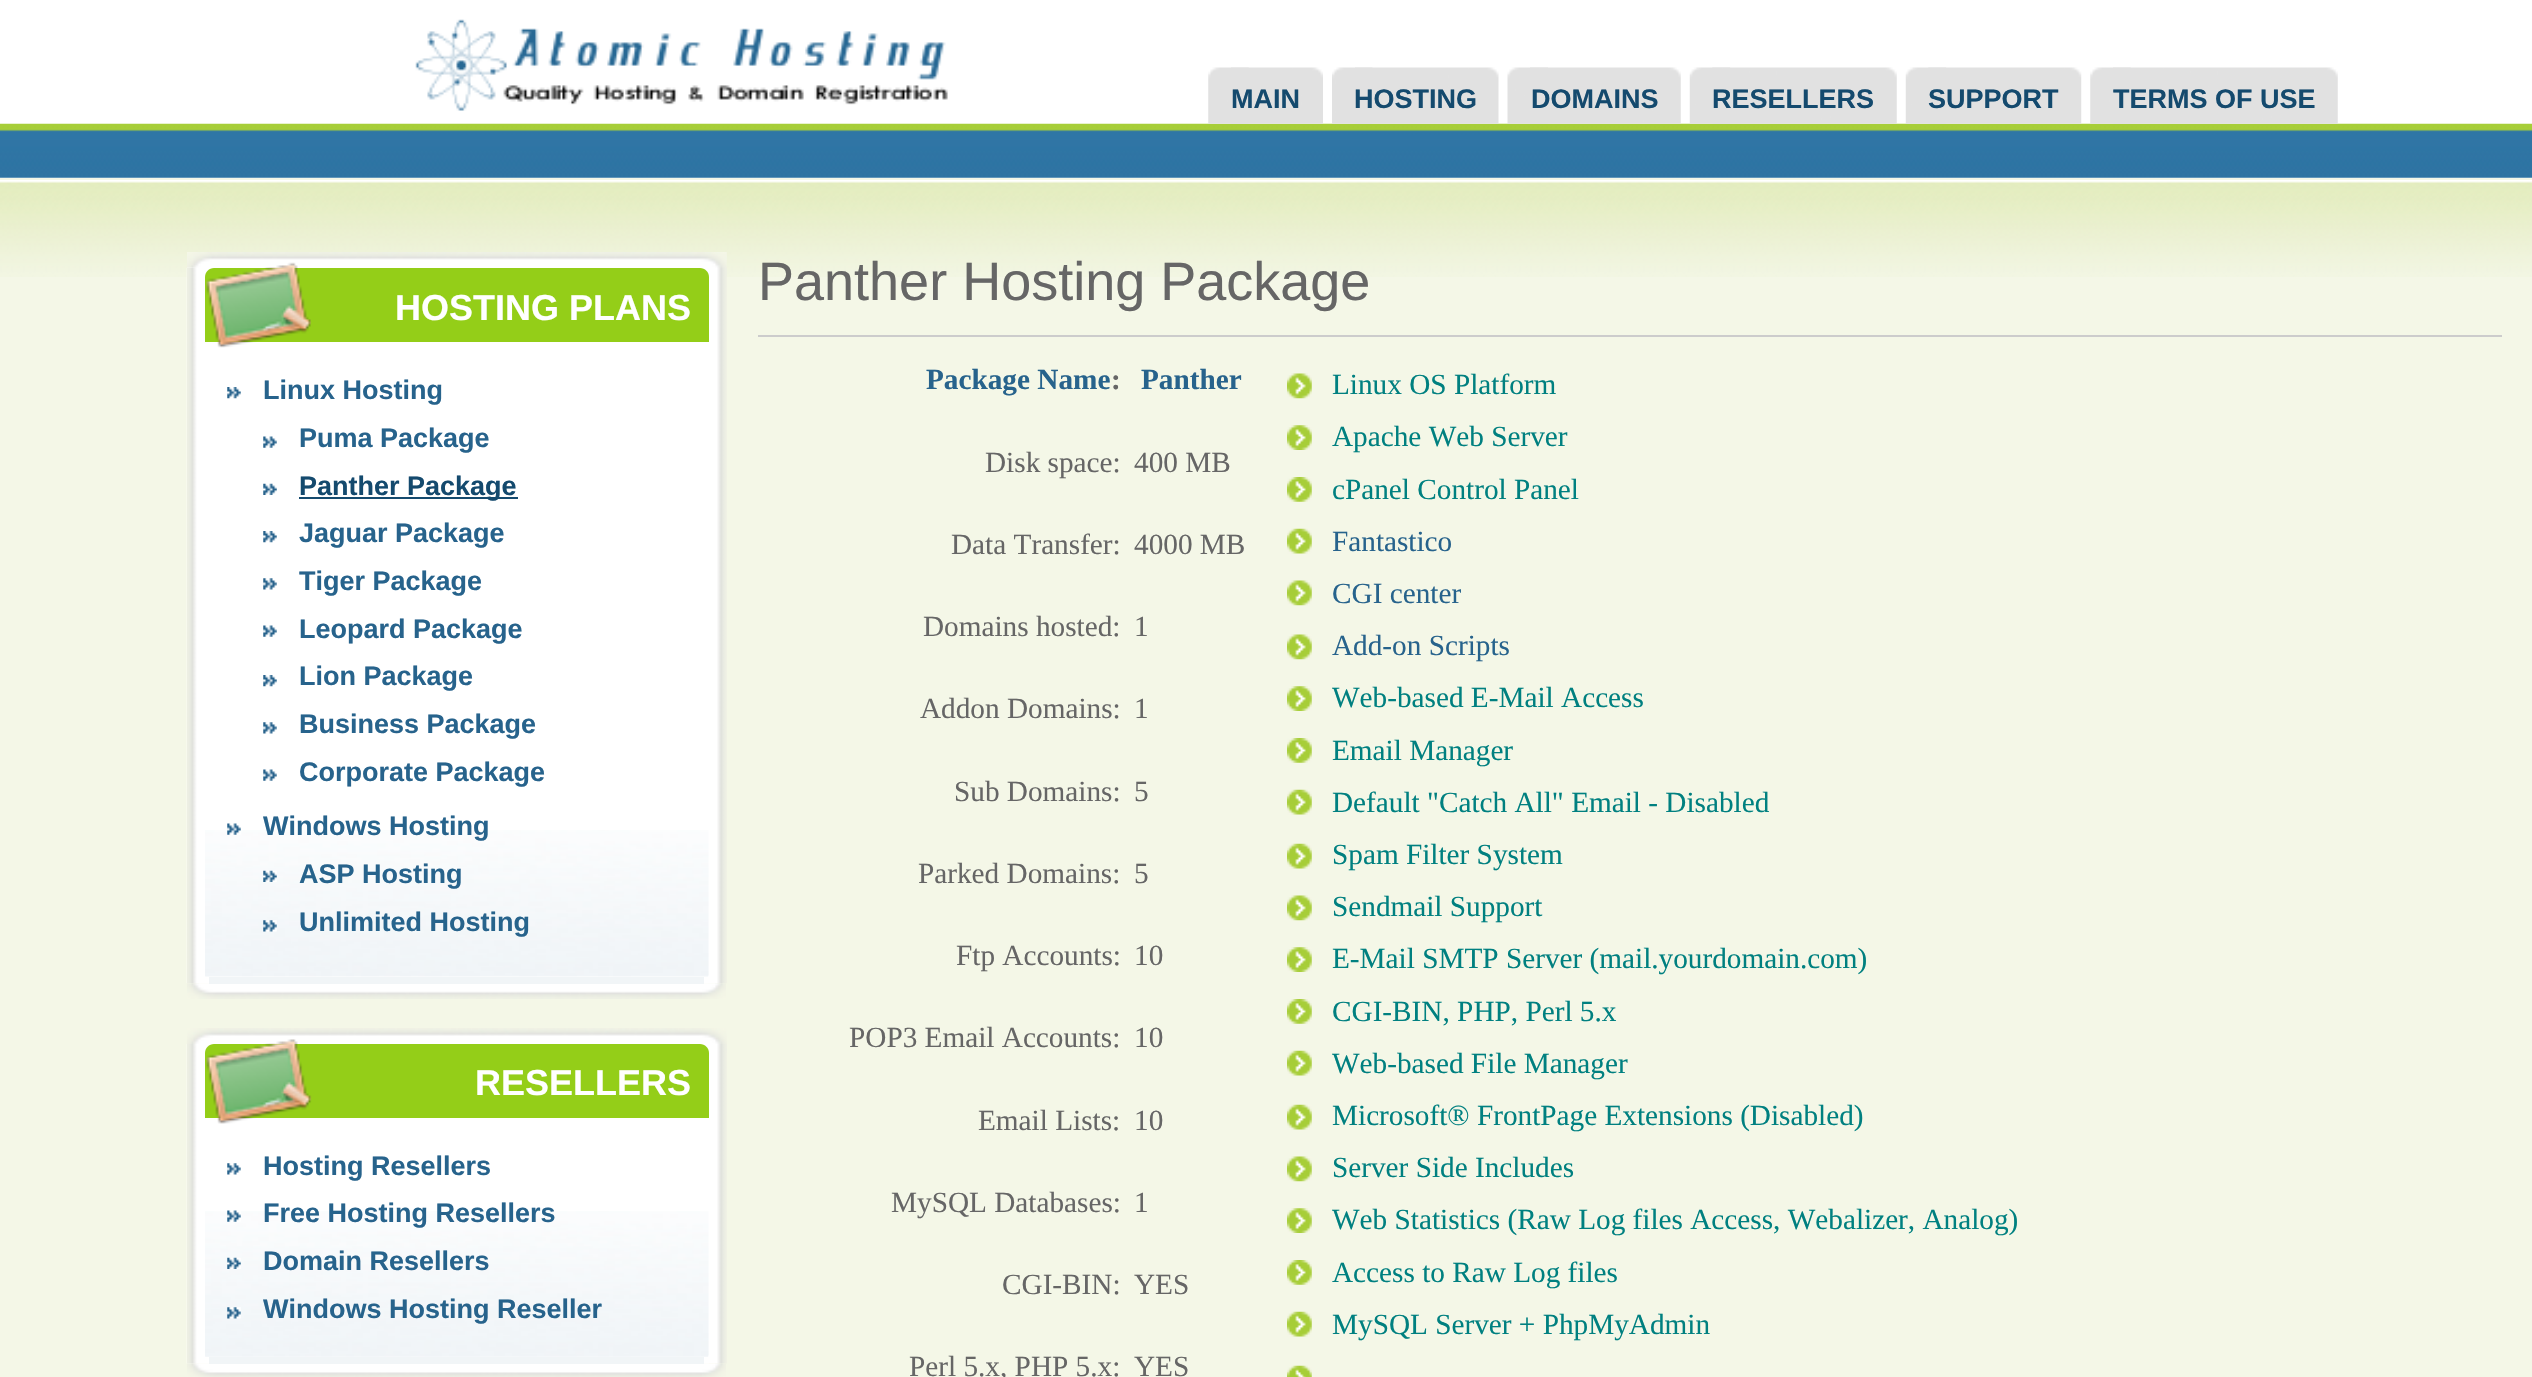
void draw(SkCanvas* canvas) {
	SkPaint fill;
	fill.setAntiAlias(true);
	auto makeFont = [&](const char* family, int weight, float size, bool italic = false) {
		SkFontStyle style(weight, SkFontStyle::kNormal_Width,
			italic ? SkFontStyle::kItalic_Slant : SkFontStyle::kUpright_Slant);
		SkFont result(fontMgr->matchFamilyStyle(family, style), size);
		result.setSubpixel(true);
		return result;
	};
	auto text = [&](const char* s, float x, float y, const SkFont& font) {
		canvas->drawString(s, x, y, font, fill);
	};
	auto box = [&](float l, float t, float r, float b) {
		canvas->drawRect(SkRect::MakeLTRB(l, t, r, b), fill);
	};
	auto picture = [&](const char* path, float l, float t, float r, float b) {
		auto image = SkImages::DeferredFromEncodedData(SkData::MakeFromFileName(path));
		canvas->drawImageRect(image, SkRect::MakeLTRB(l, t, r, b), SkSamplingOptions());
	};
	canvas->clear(0xFFFFFFFF);
	picture("image0.png", 415, 19, 948, 111);
	picture("image13.png", 0, 123, 2532, 178);
	picture("image1.png", 1208, 67, 1249, 124);
	picture("image2.png", 1231, 67, 1323, 124);
	picture("image3.png", 1332, 67, 1373, 124);
	picture("image4.png", 1355, 67, 1499, 124);
	picture("image5.png", 1507, 67, 1548, 124);
	picture("image6.png", 1530, 67, 1681, 124);
	picture("image7.png", 1689, 67, 1731, 124);
	picture("image8.png", 1712, 67, 1897, 124);
	picture("image9.png", 1905, 67, 1947, 124);
	picture("image10.png", 1928, 67, 2082, 124);
	picture("image11.png", 2090, 67, 2131, 124);
	picture("image12.png", 2113, 67, 2338, 124);
	fill.setColor(0xFFF4F7E7);
	box(0, 178, 2532, 1377);
	picture("image14.png", 0, 180, 2532, 277);
	picture("image15.png", 187, 252, 212, 268);
	picture("image16.png", 212, 252, 727, 277);
	picture("image17.png", 186, 267, 727, 984);
	picture("image18.png", 187, 268, 708, 984);
	fill.setColor(0xFF94CE18);
	canvas->drawPath(SkPathBuilder().moveTo(214, 268).lineTo(700, 268).cubicTo(705, 268, 709, 272, 709, 277).lineTo(709, 342).lineTo(205, 342).lineTo(205, 277).cubicTo(205, 272, 209, 268, 214, 268).close().detach(), fill);
	picture("image19.png", 206, 262, 311, 348);
	picture("image20.png", 205, 830, 709, 977);
	picture("image30.png", 187, 983, 702, 999);
	picture("image31.png", 702, 983, 726, 999);
	fill.setColor(0xFFF1F5F7);
	box(209, 977, 704, 984);
	picture("image21.png", 227, 387, 241, 399);
	picture("image22.png", 263, 436, 277, 448);
	picture("image23.png", 263, 483, 277, 495);
	fill.setColor(0xFF144A6E);
	box(299, 497, 518, 499);
	picture("image24.png", 263, 531, 277, 543);
	picture("image25.png", 263, 578, 277, 590);
	picture("image22.png", 263, 625, 277, 637);
	picture("image24.png", 263, 675, 277, 687);
	picture("image26.png", 263, 722, 277, 734);
	picture("image22.png", 263, 769, 277, 781);
	picture("image27.png", 227, 823, 241, 835);
	picture("image28.png", 263, 870, 277, 882);
	picture("image29.png", 263, 920, 277, 932);
	picture("image32.png", 187, 1028, 702, 1044);
	picture("image33.png", 702, 1028, 727, 1053);
	picture("image34.png", 186, 1044, 727, 1364);
	picture("image35.png", 187, 1044, 709, 1364);
	fill.setColor(0xFF94CE18);
	canvas->drawPath(SkPathBuilder().moveTo(214, 1044).lineTo(700, 1044).cubicTo(705, 1044, 709, 1048, 709, 1053).lineTo(709, 1118).lineTo(205, 1118).lineTo(205, 1053).cubicTo(205, 1048, 209, 1044, 214, 1044).close().detach(), fill);
	picture("image36.png", 206, 1039, 312, 1124);
	picture("image37.png", 205, 1211, 709, 1357);
	picture("image42.png", 187, 1363, 702, 1377);
	picture("image43.png", 702, 1363, 726, 1377);
	fill.setColor(0xFFF1F5F7);
	box(209, 1357, 704, 1364);
	picture("image38.png", 227, 1163, 241, 1175);
	picture("image39.png", 227, 1210, 241, 1222);
	picture("image40.png", 227, 1257, 241, 1269);
	picture("image41.png", 227, 1307, 241, 1319);
	fill.setColor(0xFFCCCCCC);
	box(758, 335, 2502, 337);
	picture("image44.png", 1287, 373, 1312, 399);
	picture("image45.png", 1287, 425, 1312, 450);
	picture("image46.png", 1287, 477, 1312, 502);
	picture("image47.png", 1287, 528, 1312, 554);
	picture("image44.png", 1287, 580, 1312, 606);
	picture("image44.png", 1287, 634, 1312, 660);
	picture("image45.png", 1287, 686, 1312, 711);
	picture("image46.png", 1287, 738, 1312, 763);
	picture("image47.png", 1287, 789, 1312, 815);
	picture("image47.png", 1287, 843, 1312, 869);
	picture("image44.png", 1287, 895, 1312, 921);
	picture("image45.png", 1287, 947, 1312, 972);
	picture("image46.png", 1287, 999, 1312, 1024);
	picture("image47.png", 1287, 1050, 1312, 1076);
	picture("image47.png", 1287, 1104, 1312, 1130);
	picture("image48.png", 1287, 1156, 1312, 1182);
	picture("image45.png", 1287, 1208, 1312, 1233);
	picture("image46.png", 1287, 1260, 1312, 1285);
	picture("image47.png", 1287, 1311, 1312, 1337);
	picture("image49.png", 1287, 1365, 1312, 1377);
	auto font1 = makeFont("Liberation Sans", 700, 27);
	fill.setColor(0xFF144A6E);
	text("MAIN", 1231, 108, font1);
	text("HOSTING", 1354, 108, font1);
	text("DOMAINS", 1531, 108, font1);
	text("RESELLERS", 1712, 108, font1);
	text("SUPPORT", 1928, 108, font1);
	text("TERMS OF USE", 2113, 108, font1);
	auto font2 = makeFont("Liberation Sans", 700, 36);
	fill.setColor(0xFFFFFFFF);
	text("HOSTING PLANS", 395, 320, font2);
	fill.setColor(0xFF27638C);
	text("Linux Hosting", 263, 399, font1);
	text("Puma Package", 299, 447, font1);
	fill.setColor(0xFF144A6E);
	text("Panther Package", 299, 495, font1);
	fill.setColor(0xFF27638C);
	text("Jaguar Package", 299, 542, font1);
	text("Tiger Package", 299, 590, font1);
	text("Leopard Package", 299, 638, font1);
	text("Lion Package", 299, 685, font1);
	text("Business Package", 299, 733, font1);
	text("Corporate Package", 299, 781, font1);
	text("Windows Hosting", 263, 835, font1);
	text("ASP Hosting", 299, 883, font1);
	text("Unlimited Hosting", 299, 931, font1);
	fill.setColor(0xFFFFFFFF);
	text("RESELLERS", 475, 1095, font2);
	fill.setColor(0xFF27638C);
	text("Hosting Resellers", 263, 1175, font1);
	text("Free Hosting Resellers", 263, 1222, font1);
	text("Domain Resellers", 263, 1270, font1);
	text("Windows Hosting Reseller", 263, 1318, font1);
	auto font3 = makeFont("Liberation Sans", 400, 54);
	fill.setColor(0xFF666666);
	text("Panther Hosting Package", 758, 300, font3);
	auto font4 = makeFont("Liberation Serif", 700, 29.25f);
	fill.setColor(0xFF27638C);
	text("Package Name", 926, 389, font4);
	fill.setColor(0xFF666666);
	text(":", 1111, 389, font4);
	fill.setColor(0xFF27638C);
	text("Panther", 1141, 389, font4);
	auto font5 = makeFont("Liberation Serif", 400, 29.25f);
	fill.setColor(0xFF008080);
	text("Linux OS Platform", 1332, 394, font5);
	text("Apache Web Server", 1332, 446, font5);
	text("cPanel Control Panel", 1332, 499, font5);
	fill.setColor(0xFF27638C);
	text("Fantastico", 1332, 551, font5);
	text("CGI center", 1332, 603, font5);
	text("Add-on Scripts", 1332, 655, font5);
	fill.setColor(0xFF008080);
	text("Web-based E-Mail Access", 1332, 707, font5);
	text("Email Manager", 1332, 760, font5);
	text("Default \"Catch All\" Email - Disabled", 1332, 812, font5);
	text("Spam Filter System", 1332, 864, font5);
	text("Sendmail Support", 1332, 916, font5);
	text("E-Mail SMTP Server (mail.yourdomain.com)", 1332, 968, font5);
	text("CGI-BIN, PHP, Perl 5.x", 1332, 1021, font5);
	text("Web-based File Manager", 1332, 1073, font5);
	text("Microsoft® FrontPage Extensions (Disabled)", 1332, 1125, font5);
	text("Server Side Includes", 1332, 1177, font5);
	text("Web Statistics (Raw Log files Access, Webalizer, Analog)", 1332, 1229, font5);
	text("Access to Raw Log files", 1332, 1282, font5);
	text("MySQL Server + PhpMyAdmin", 1332, 1334, font5);
	fill.setColor(0xFF666666);
	text("Disk space:", 985, 472, font5);
	text("400 MB", 1134, 472, font5);
	text("Data Transfer:", 951, 554, font5);
	text("4000 MB", 1134, 554, font5);
	text("Domains hosted:", 923, 636, font5);
	text("1", 1134, 636, font5);
	text("Addon Domains:", 920, 718, font5);
	text("1", 1134, 718, font5);
	text("Sub Domains:", 954, 801, font5);
	text("5", 1134, 801, font5);
	text("Parked Domains:", 918, 883, font5);
	text("5", 1134, 883, font5);
	text("Ftp Accounts:", 956, 965, font5);
	text("10", 1134, 965, font5);
	text("POP3 Email Accounts:", 849, 1047, font5);
	text("10", 1134, 1047, font5);
	text("Email Lists:", 978, 1130, font5);
	text("10", 1134, 1130, font5);
	text("MySQL Databases:", 891, 1212, font5);
	text("1", 1134, 1212, font5);
	text("CGI-BIN:", 1002, 1294, font5);
	text("YES", 1134, 1294, font5);
	text("Perl 5.x, PHP 5.x:", 909, 1376, font5);
	text("YES", 1134, 1376, font5);
}
